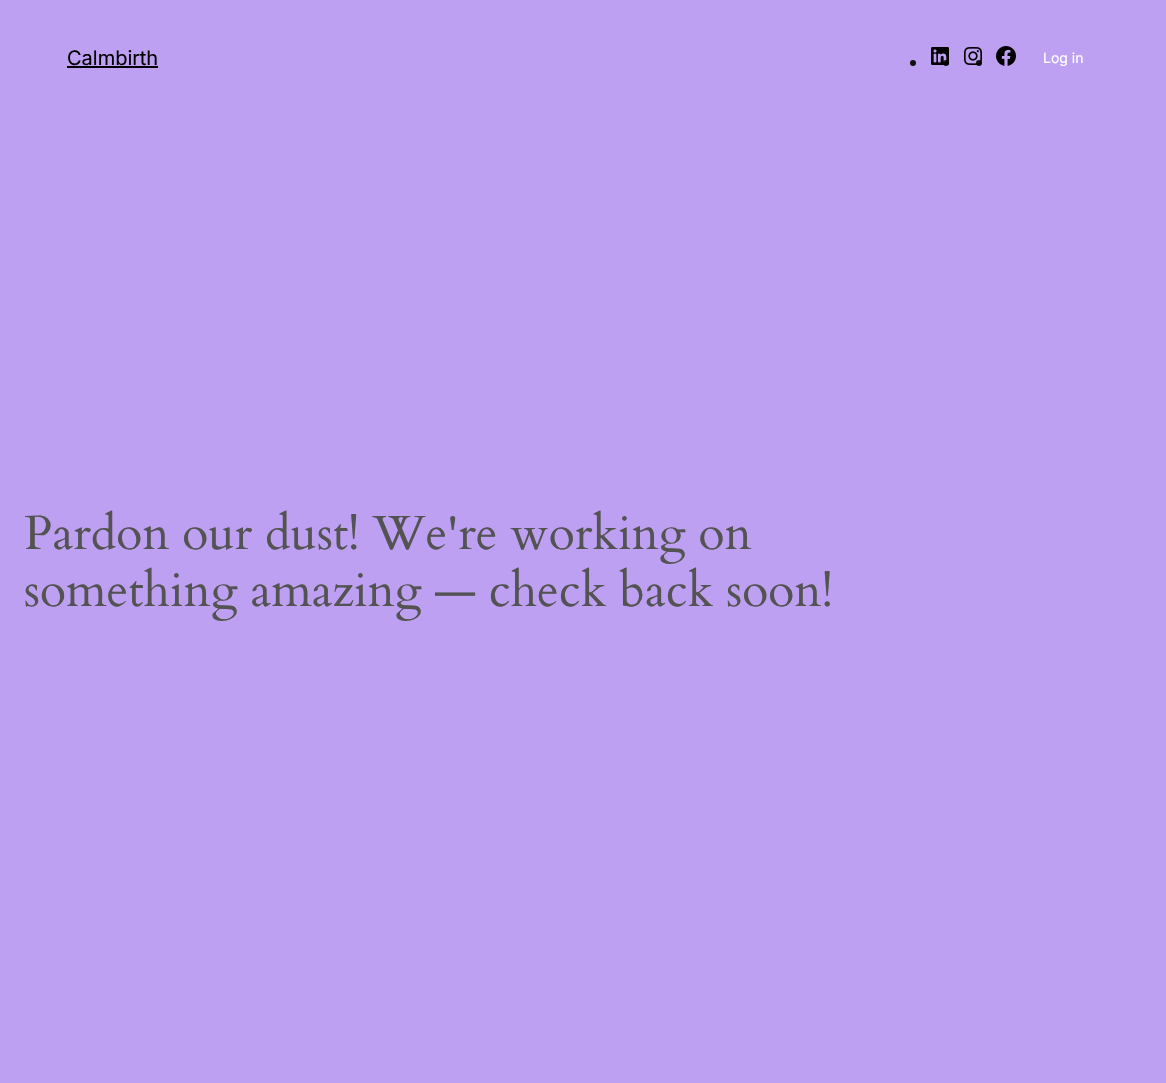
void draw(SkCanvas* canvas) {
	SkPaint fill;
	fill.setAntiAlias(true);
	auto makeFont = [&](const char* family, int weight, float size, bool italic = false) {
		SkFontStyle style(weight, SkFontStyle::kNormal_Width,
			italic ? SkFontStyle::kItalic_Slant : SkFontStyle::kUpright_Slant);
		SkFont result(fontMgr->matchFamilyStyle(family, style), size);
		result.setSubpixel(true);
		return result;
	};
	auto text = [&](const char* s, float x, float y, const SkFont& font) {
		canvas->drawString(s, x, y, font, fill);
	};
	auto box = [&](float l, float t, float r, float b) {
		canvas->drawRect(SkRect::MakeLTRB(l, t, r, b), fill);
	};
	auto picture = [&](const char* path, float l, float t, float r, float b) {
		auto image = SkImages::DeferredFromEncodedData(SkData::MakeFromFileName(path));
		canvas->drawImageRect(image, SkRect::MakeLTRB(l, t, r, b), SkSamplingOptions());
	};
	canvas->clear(0xFFBEA0F2);
	fill.setColor(0xFF000000);
	box(67, 66, 158, 68);
	fill.setColor(0xFF111111);
	canvas->drawCircle(913, 63, 3, fill);
	canvas->drawCircle(946, 63, 3, fill);
	picture("image0.png", 931, 47, 949, 65);
	canvas->drawCircle(979, 63, 3, fill);
	picture("image1.png", 964, 47, 982, 65);
	picture("image2.png", 996, 46, 1016, 66);
	auto font1 = makeFont("Inter", 400, 20);
	fill.setColor(0xFF000000);
	text("Calmbirth", 67, 65, font1);
	auto font2 = makeFont("Inter", 400, 14);
	fill.setColor(0xFFFFFFFF);
	text("Log in", 1043, 63, font2);
	auto font3 = makeFont("Cardo", 400, 48);
	fill.setColor(0xFF535353);
	text("Pardon our dust! We're working on", 24, 549, font3);
	text("something amazing — check back soon!", 24, 606, font3);
}
